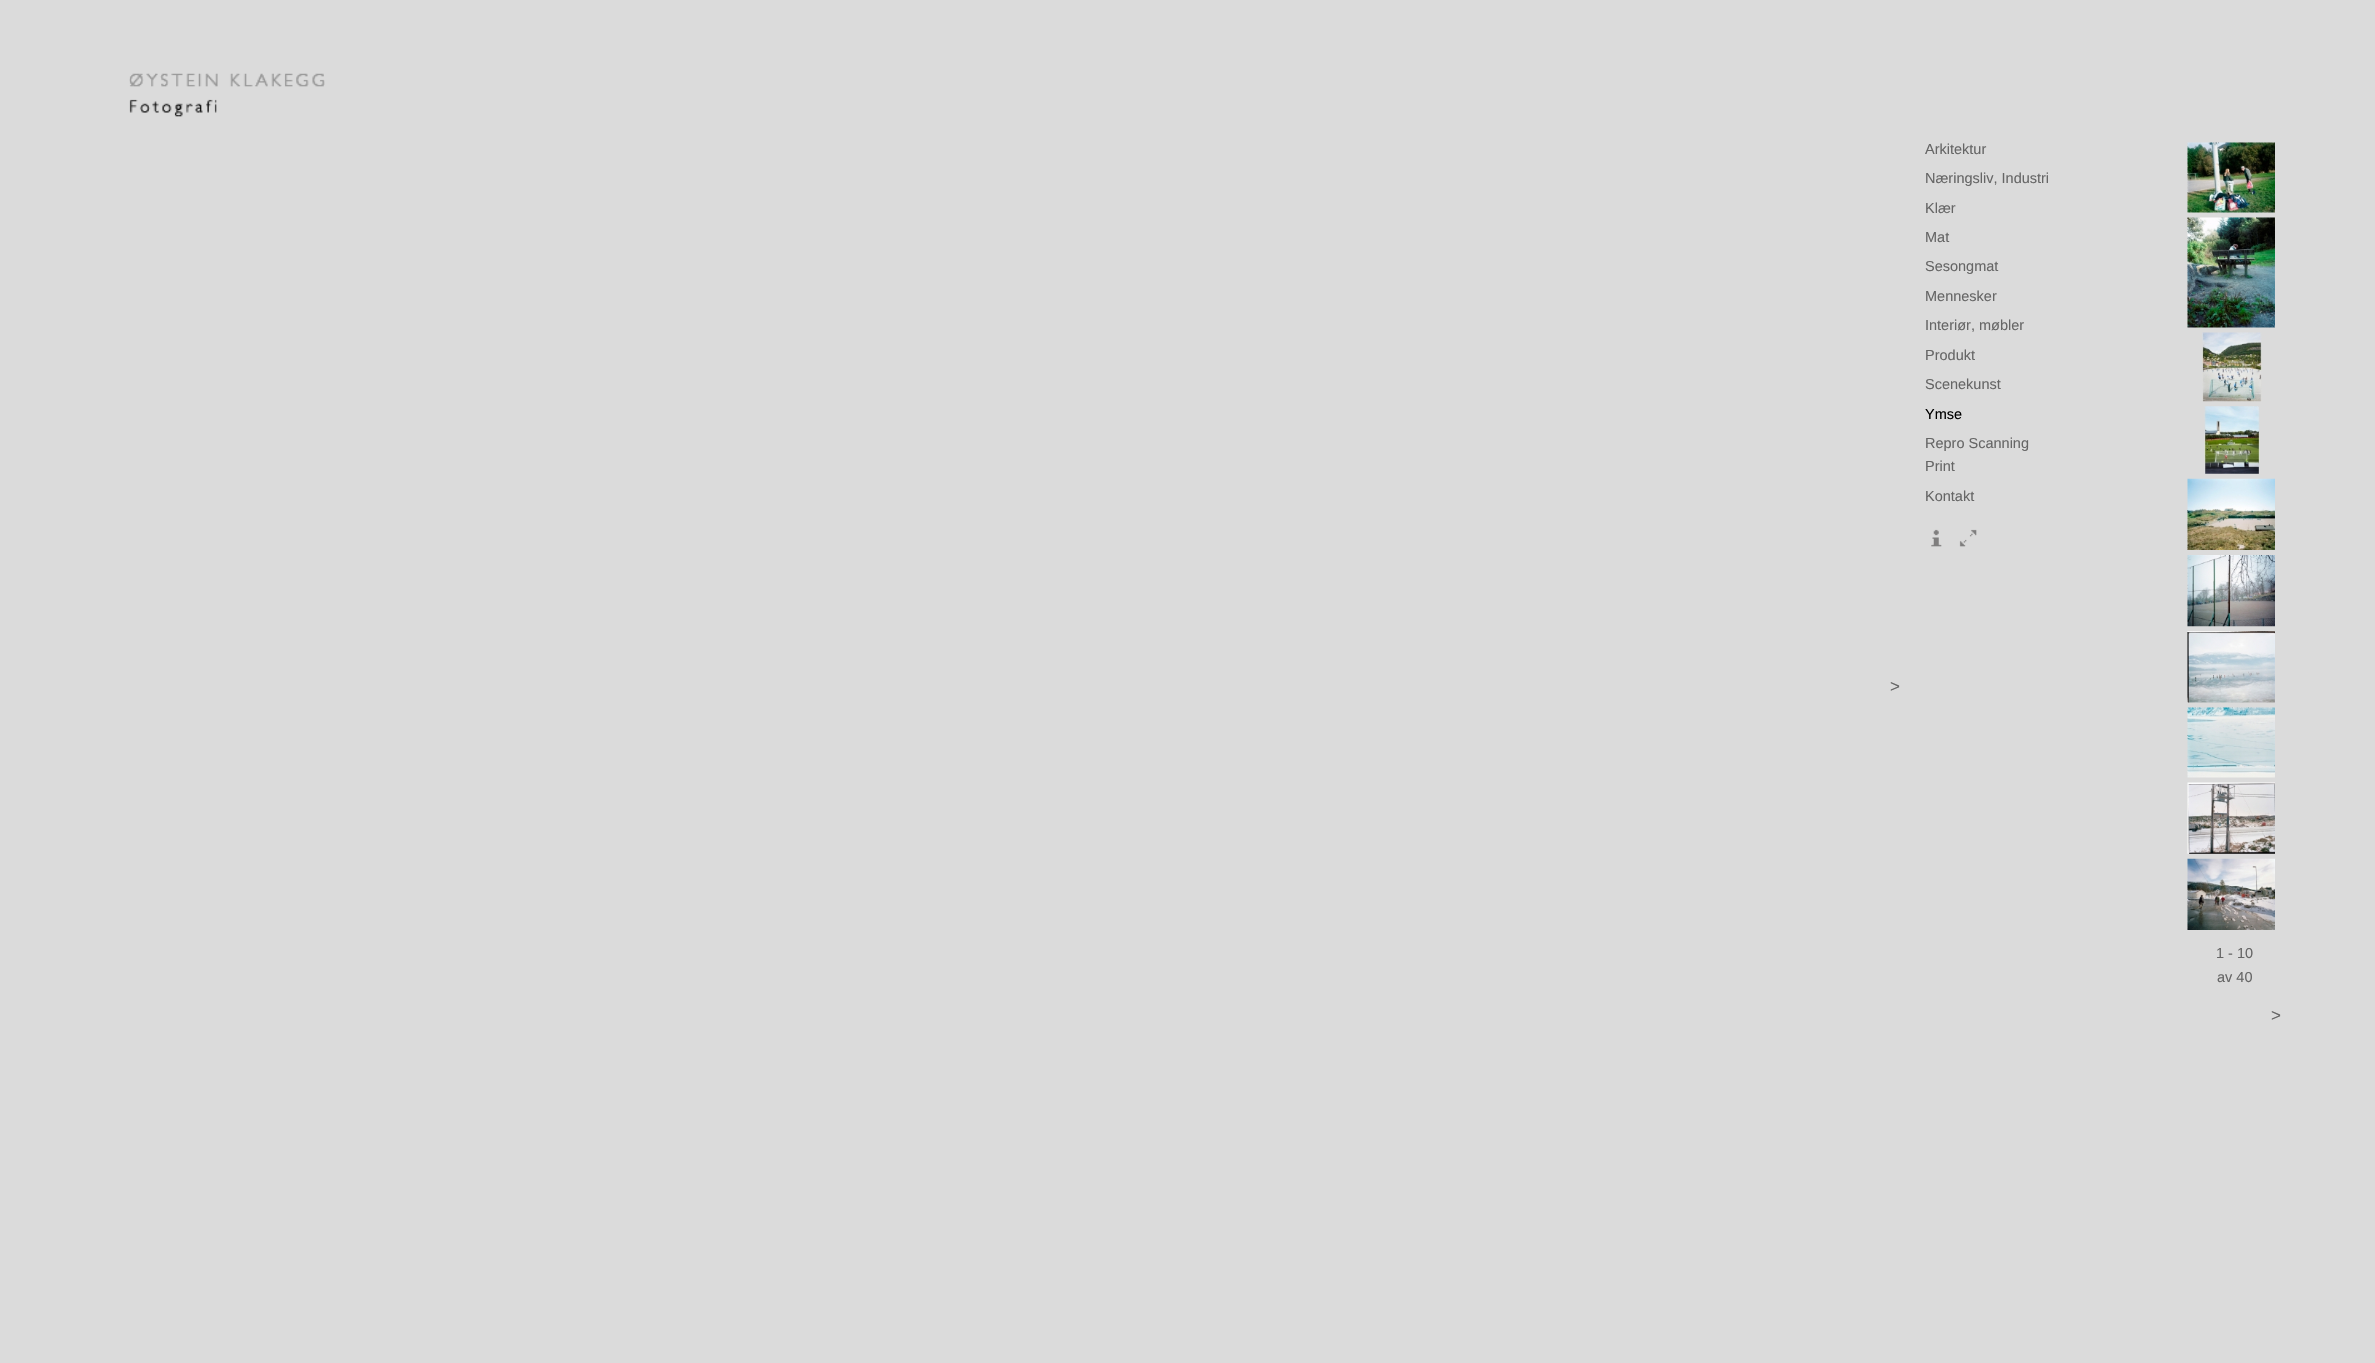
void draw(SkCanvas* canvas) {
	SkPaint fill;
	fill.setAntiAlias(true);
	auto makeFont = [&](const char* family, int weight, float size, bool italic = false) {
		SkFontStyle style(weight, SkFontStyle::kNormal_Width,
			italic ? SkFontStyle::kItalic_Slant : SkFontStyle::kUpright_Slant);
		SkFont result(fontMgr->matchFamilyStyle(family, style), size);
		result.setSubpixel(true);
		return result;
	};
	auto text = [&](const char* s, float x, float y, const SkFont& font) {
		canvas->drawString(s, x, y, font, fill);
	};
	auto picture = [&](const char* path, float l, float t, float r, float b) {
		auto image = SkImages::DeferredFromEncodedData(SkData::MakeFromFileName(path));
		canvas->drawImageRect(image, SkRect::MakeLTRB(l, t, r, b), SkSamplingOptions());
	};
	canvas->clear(0xFFDBDBDB);
	picture("image0.png", 129, 73, 325, 117);
	picture("image1.png", 1931, 529, 1942, 547);
	picture("image2.png", 1959, 529, 1977, 547);
	picture("image3.png", 2187, 142, 2275, 213);
	picture("image4.png", 2187, 217, 2275, 328);
	picture("image5.png", 2202, 332, 2262, 402);
	picture("image6.png", 2204, 406, 2260, 474);
	picture("image7.png", 2187, 478, 2275, 550);
	picture("image8.png", 2187, 555, 2275, 627);
	picture("image9.png", 2187, 631, 2275, 703);
	picture("image10.png", 2187, 707, 2275, 778);
	picture("image11.png", 2187, 782, 2275, 854);
	picture("image12.png", 2187, 858, 2275, 930);
	auto font1 = makeFont("Liberation Sans", 400, 14.5f);
	fill.setColor(0xFF666666);
	text("Arkitektur", 1925, 154, font1);
	text("Næringsliv, Industri", 1925, 183, font1);
	text("Klær", 1925, 213, font1);
	text("Mat", 1925, 242, font1);
	text("Sesongmat", 1925, 271, font1);
	text("Mennesker", 1925, 301, font1);
	text("Interiør, møbler", 1925, 330, font1);
	text("Produkt", 1925, 360, font1);
	text("Scenekunst", 1925, 389, font1);
	fill.setColor(0xFF000000);
	text("Ymse", 1925, 419, font1);
	fill.setColor(0xFF666666);
	text("Repro Scanning", 1925, 448, font1);
	text("Print", 1925, 471, font1);
	text("Kontakt", 1925, 501, font1);
	auto font2 = makeFont("Liberation Sans", 400, 17);
	text(">", 1890, 692, font2);
	text("1 - 10", 2216, 958, font1);
	text("av 40", 2217, 982, font1);
	text(">", 2271, 1021, font2);
}
